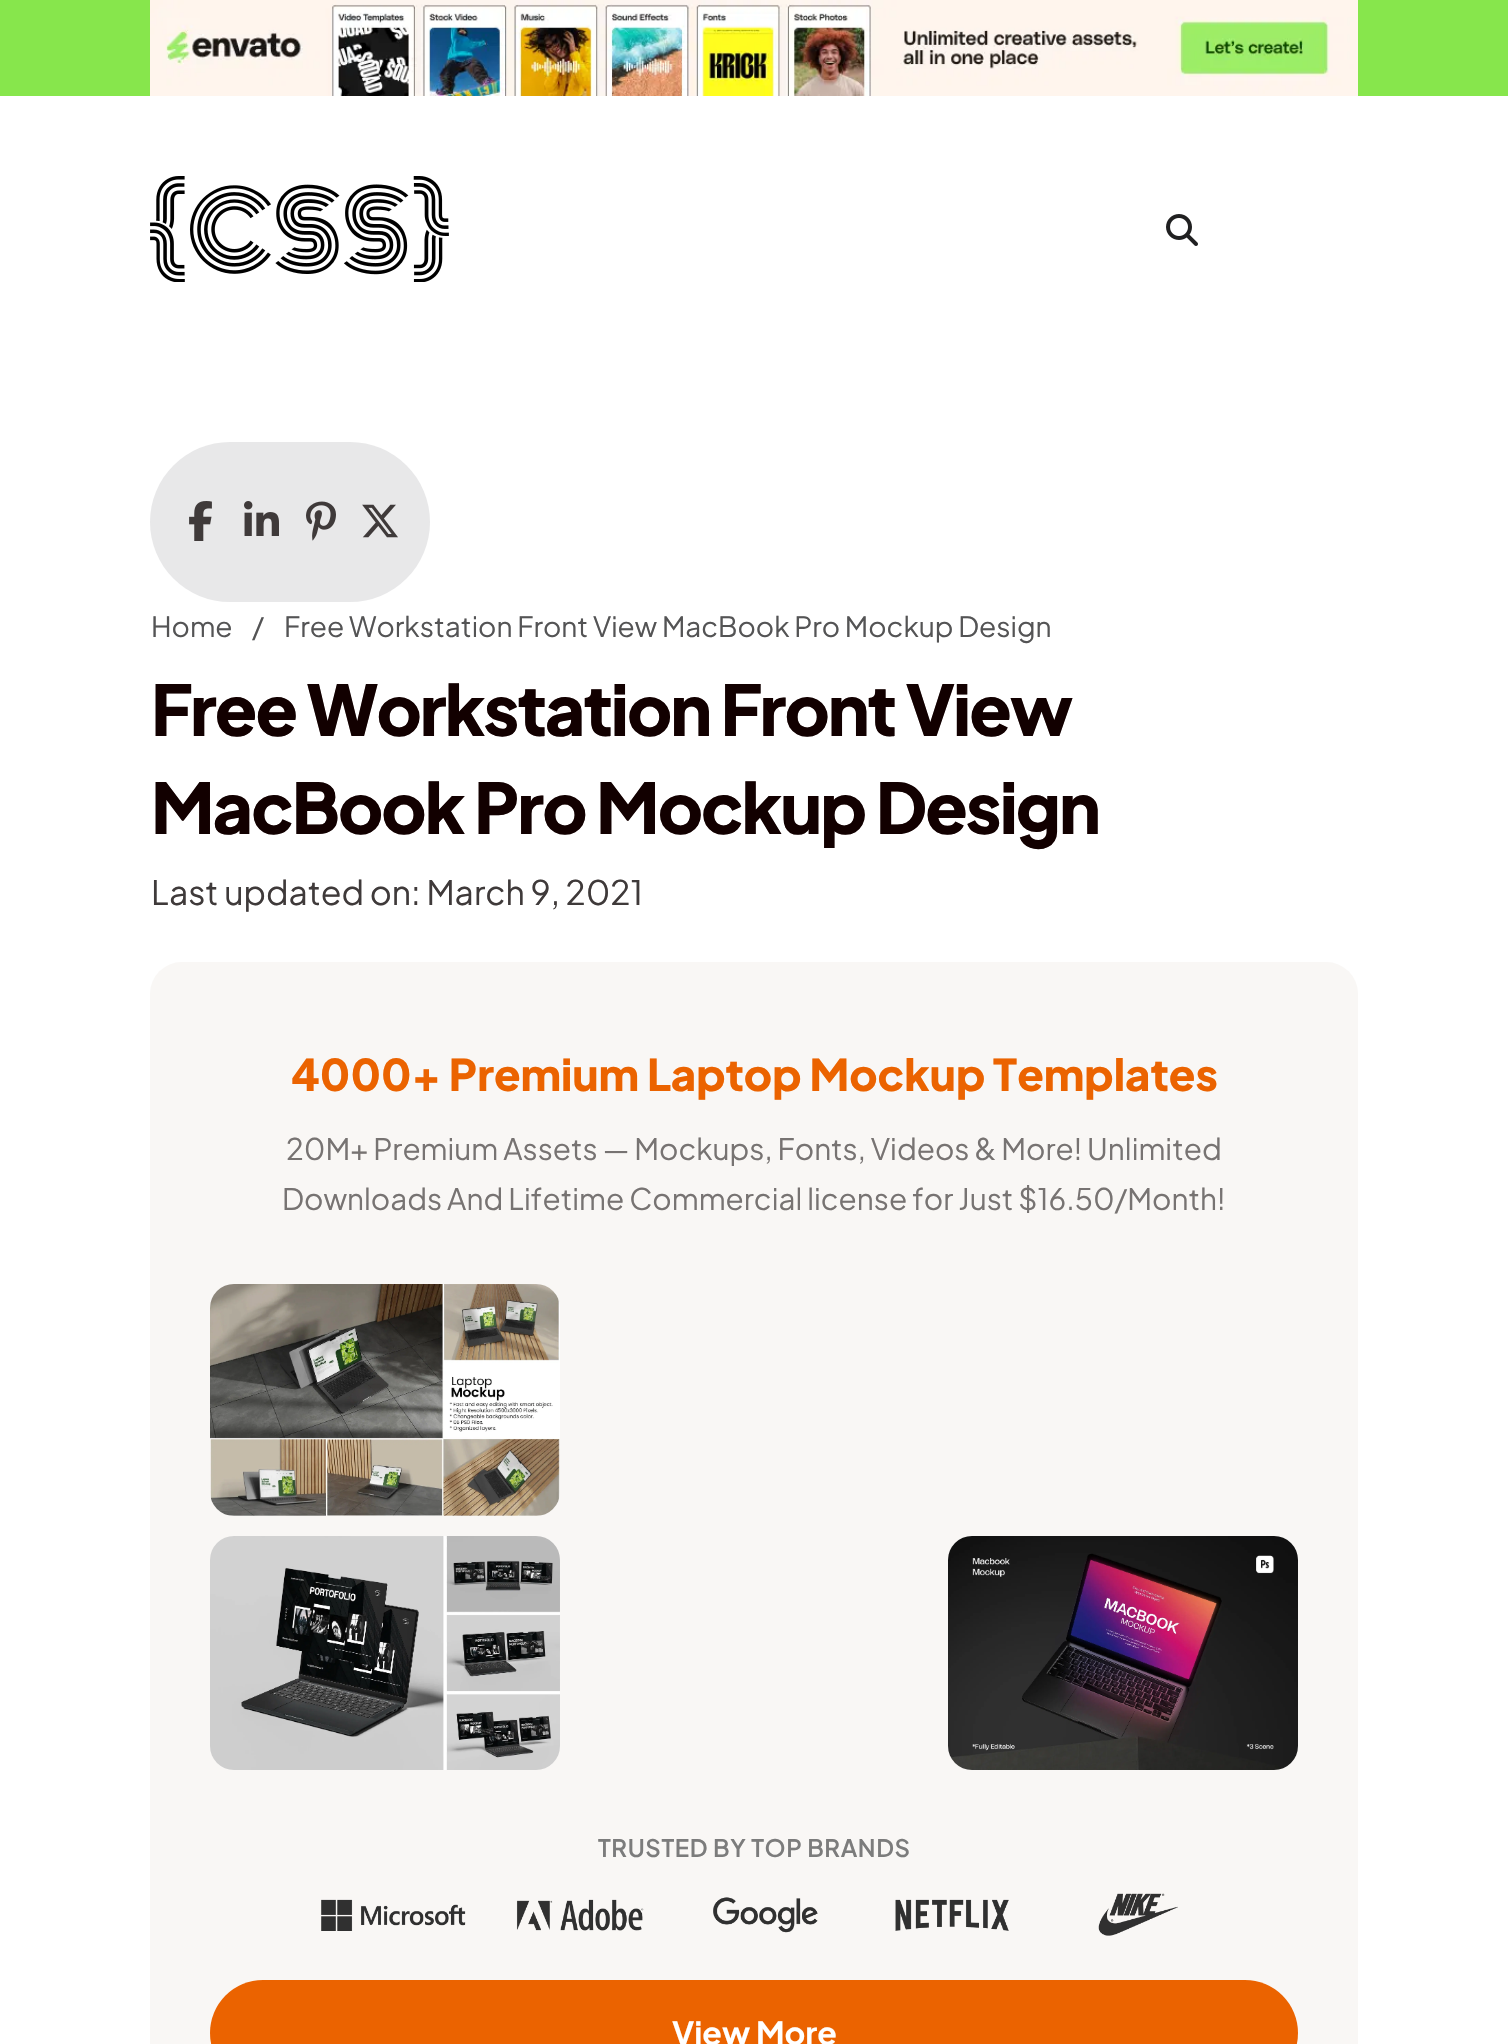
void draw(SkCanvas* canvas) {
	SkPaint fill;
	fill.setAntiAlias(true);
	auto makeFont = [&](const char* family, int weight, float size, bool italic = false) {
		SkFontStyle style(weight, SkFontStyle::kNormal_Width,
			italic ? SkFontStyle::kItalic_Slant : SkFontStyle::kUpright_Slant);
		SkFont result(fontMgr->matchFamilyStyle(family, style), size);
		result.setSubpixel(true);
		return result;
	};
	auto text = [&](const char* s, float x, float y, const SkFont& font) {
		canvas->drawString(s, x, y, font, fill);
	};
	auto spacedText = [&](const char* s, float x, float y, const SkFont& font, const SkPaint& ink, float letter, float word) {
		std::vector<SkGlyphID> glyphs(font.countText(s, strlen(s), SkTextEncoding::kUTF8));
		std::vector<float> xs(glyphs.size());
		font.textToGlyphs(s, strlen(s), SkTextEncoding::kUTF8, glyphs);
		font.getXPos(glyphs, xs, x);
		float extra = 0;
		for (size_t i = 0; i < glyphs.size(); i++) {
			xs[i] += extra;
			extra += letter + word * (glyphs[i] == font.unicharToGlyph(' '));
		}
		canvas->drawTextBlob(SkTextBlob::MakeFromPosHGlyphs(glyphs, xs, y, font), 0, 0, ink);
	};
	auto box = [&](float l, float t, float r, float b) {
		canvas->drawRect(SkRect::MakeLTRB(l, t, r, b), fill);
	};
	auto roundBox = [&](float l, float t, float r, float b, float radius) {
		canvas->drawRoundRect(SkRect::MakeLTRB(l, t, r, b), radius, radius, fill);
	};
	auto picture = [&](const char* path, float l, float t, float r, float b) {
		auto image = SkImages::DeferredFromEncodedData(SkData::MakeFromFileName(path));
		canvas->drawImageRect(image, SkRect::MakeLTRB(l, t, r, b), SkSamplingOptions());
	};
	canvas->clear(0xFFFFFFFF);
	fill.setColor(0xFF87E64C);
	box(0, 0, 1508, 96);
	picture("image0.png", 150, 0, 1358, 96);
	picture("image1.png", 150, 176, 449, 282);
	picture("image2.png", 1166, 214, 1198, 246);
	fill.setColor(0xFFE8E8E9);
	roundBox(150, 442, 430, 602, 80);
	picture("image3.png", 189, 501, 212, 541);
	picture("image4.png", 244, 501, 279, 536);
	picture("image5.png", 306, 501, 336, 541);
	picture("image6.png", 362, 504, 398, 538);
	fill.setColor(0xFFF9F7F5);
	roundBox(150, 962, 1358, 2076, 32);
	picture("image7.png", 210, 1284, 560, 1516);
	picture("image8.png", 210, 1536, 560, 1770);
	picture("image9.png", 948, 1536, 1298, 1770);
	picture("image10.png", 321, 1893, 1178, 1936);
	fill.setColor(0xFFEB6300);
	roundBox(210, 1980, 1298, 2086, 53);
	auto font1 = makeFont("Plus Jakarta Sans", 400, 28);
	fill.setColor(0xFF545455);
	text("Home", 151, 637, font1);
	text("/", 252, 637, font1);
	text("Free Workstation Front View MacBook Pro Mockup Design", 284, 637, font1);
	auto font2 = makeFont("Plus Jakarta Sans", 800, 69.7f);
	fill.setColor(0xFF120000);
	spacedText("Free Workstation Front View", 151, 736, font2, fill, -2, 0);
	spacedText("MacBook Pro Mockup Design", 151, 834, font2, fill, -2, 0);
	auto font3 = makeFont("Plus Jakarta Sans", 400, 33.7f);
	fill.setColor(0xFF3F3A3A);
	text("Last updated on: March 9, 2021", 151, 905, font3);
	auto font4 = makeFont("Plus Jakarta Sans", 800, 43.6f);
	fill.setColor(0xFFEB6300);
	text("4000+ Premium Laptop Mockup Templates", 291, 1091, font4);
	auto font5 = makeFont("Plus Jakarta Sans", 400, 29.65f);
	fill.setColor(0xFF777372);
	text("20M+ Premium Assets — Mockups, Fonts, Videos & More! Unlimited", 286, 1160, font5);
	text("Downloads And Lifetime Commercial license for Just $16.50/Month!", 282, 1210, font5);
	auto font6 = makeFont("Plus Jakarta Sans", 600, 24);
	fill.setColor(0xFF7C7C7C);
	spacedText("TRUSTED BY TOP BRANDS", 598, 1857, font6, fill, 0.6f, 0);
	auto font7 = makeFont("Plus Jakarta Sans", 700, 32);
	fill.setColor(0xFFFFFFFF);
	text("View More", 672, 2045, font7);
}
